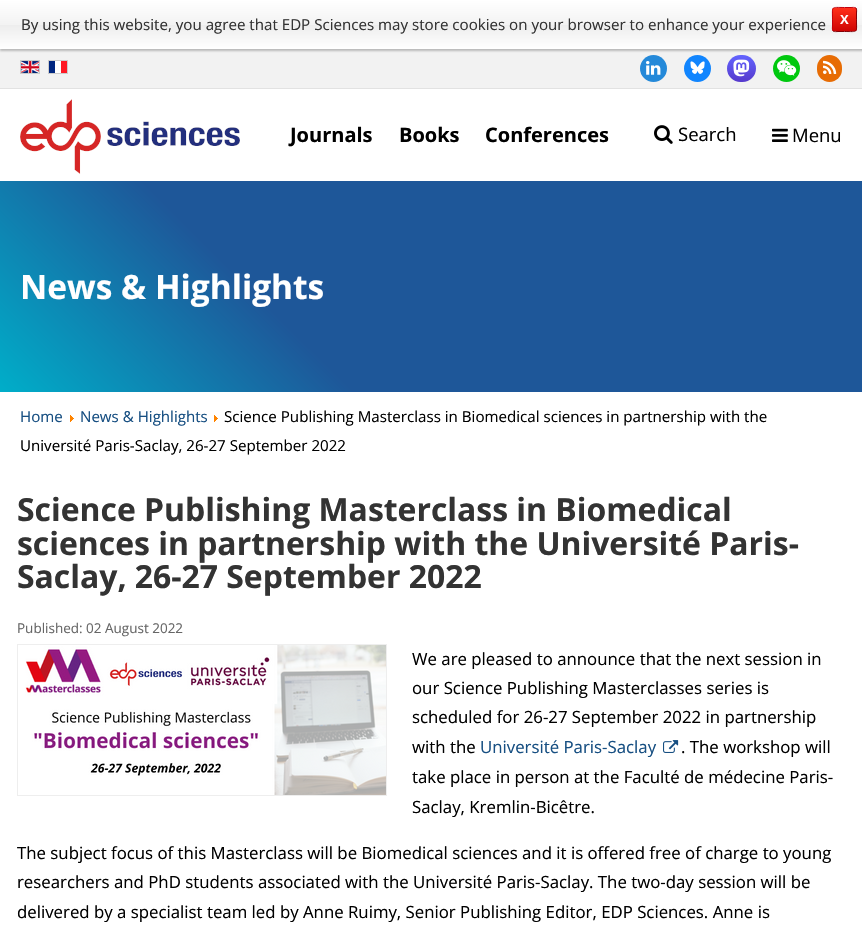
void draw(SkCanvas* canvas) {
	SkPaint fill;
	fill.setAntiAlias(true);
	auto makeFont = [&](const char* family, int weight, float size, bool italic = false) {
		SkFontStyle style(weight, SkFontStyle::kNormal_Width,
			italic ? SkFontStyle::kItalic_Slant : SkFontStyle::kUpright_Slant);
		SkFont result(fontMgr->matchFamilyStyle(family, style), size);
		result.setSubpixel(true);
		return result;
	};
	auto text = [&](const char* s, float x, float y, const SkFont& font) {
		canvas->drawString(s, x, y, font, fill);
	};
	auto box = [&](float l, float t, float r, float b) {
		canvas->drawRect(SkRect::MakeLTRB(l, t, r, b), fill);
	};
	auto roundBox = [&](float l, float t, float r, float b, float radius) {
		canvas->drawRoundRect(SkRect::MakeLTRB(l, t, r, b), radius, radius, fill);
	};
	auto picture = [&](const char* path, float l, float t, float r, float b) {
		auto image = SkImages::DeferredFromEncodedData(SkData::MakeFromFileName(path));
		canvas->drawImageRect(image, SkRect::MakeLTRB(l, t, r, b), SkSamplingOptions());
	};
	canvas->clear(0xFFFFFFFF);
	fill.setColor(0xFFF2F2F2);
	box(0, 49, 862, 88);
	fill.setColor(0x807F7F7F);
	fill.setMaskFilter(SkMaskFilter::MakeBlur(kNormal_SkBlurStyle, 1));
	canvas->drawRect(SkRect::MakeLTRB(0, 2, 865, 51), fill);
	fill.setMaskFilter(nullptr);
	{
		const SkColor colors[] = {0xFFFFFFFF, 0xFFF3F3F3, 0xFFEDEDED, 0xFFFFFFFF};
		const float stops[] = {0, 0.5f, 0.51f, 1};
		const SkPoint ends[] = {{436, 0}, {436, 49}};
		fill.setShader(SkGradientShader::MakeLinear(ends, colors, stops, 4, SkTileMode::kClamp));
		fill.setAlpha(255);
	}
	box(0, 0, 862, 49);
	canvas->save();
	canvas->clipPath(SkPathBuilder().moveTo(835, 7).lineTo(854, 7).cubicTo(855.5f, 7, 857, 8.5f, 857, 10).lineTo(857, 29).cubicTo(857, 30.5f, 855.5f, 32, 854, 32).lineTo(835, 32).cubicTo(833.5f, 32, 832, 30.5f, 832, 29).lineTo(832, 10).cubicTo(832, 8.5f, 833.5f, 7, 835, 7).close().detach(), true);
	{
		const SkColor colors[] = {0xFFFF3019, 0xFFCF0404};
		const float stops[] = {0, 1};
		const SkPoint ends[] = {{845, 8}, {845, 31}};
		fill.setShader(SkGradientShader::MakeLinear(ends, colors, stops, 2, SkTileMode::kClamp));
		fill.setAlpha(255);
	}
	box(832, 8, 857, 31);
	canvas->restore();
	fill.setStyle(SkPaint::kStroke_Style);
	fill.setStrokeWidth(1);
	fill.setShader(nullptr);
	fill.setColor(0xFF830006);
	canvas->drawPath(SkPathBuilder().moveTo(856, 8).cubicTo(857, 9.5f, 856.5f, 12, 856.5f, 13).lineTo(856.5f, 19.5f).cubicTo(856.5f, 33.5f, 858.5f, 31.5f, 844.5f, 31.5f).lineTo(838, 31.5f).cubicTo(837, 31.5f, 834.5f, 32, 833, 31).detach(), fill);
	fill.setColor(0xFFC40009);
	canvas->drawPath(SkPathBuilder().moveTo(833, 31).cubicTo(832, 29.5f, 832.5f, 27, 832.5f, 26).lineTo(832.5f, 19.5f).cubicTo(832.5f, 5.5f, 830.5f, 7.5f, 844.5f, 7.5f).lineTo(851, 7.5f).cubicTo(852, 7.5f, 854.5f, 7, 856, 8).detach(), fill);
	fill.setStyle(SkPaint::kFill_Style);
	fill.setColor(0xFFE2E2E2);
	box(0, 88, 862, 89);
	fill.setStyle(SkPaint::kStroke_Style);
	fill.setColor(0xFFCCCCCC);
	canvas->drawRect(SkRect::MakeLTRB(20.5f, 60.5f, 39.5f, 73.5f), fill);
	picture("image0.png", 21, 61, 39, 73);
	canvas->drawRect(SkRect::MakeLTRB(48.5f, 60.5f, 67.5f, 73.5f), fill);
	picture("image1.png", 49, 61, 67, 73);
	fill.setStyle(SkPaint::kFill_Style);
	fill.setColor(0xFF2489D9);
	canvas->drawCircle(653.5f, 68.5f, 13.5f, fill);
	picture("image2.png", 646, 61, 661, 75);
	fill.setColor(0xFF1185FE);
	canvas->drawCircle(697.5f, 68.5f, 13.5f, fill);
	picture("image3.png", 690, 61, 705, 74);
	{
		const SkColor colors[] = {0xFF6364FF, 0xFF563ACC};
		const float stops[] = {0, 1};
		const SkPoint ends[] = {{742, 55}, {742, 82}};
		fill.setShader(SkGradientShader::MakeLinear(ends, colors, stops, 2, SkTileMode::kClamp));
		fill.setAlpha(255);
	}
	roundBox(727, 55, 756, 82, 13.5f);
	picture("image4.png", 733, 59, 750, 77);
	fill.setShader(nullptr);
	fill.setColor(0xFF00C80F);
	canvas->drawCircle(786.5f, 68.5f, 13.5f, fill);
	picture("image5.png", 777, 60, 797, 76);
	fill.setColor(0xFFE76C04);
	roundBox(817, 55, 842, 82, 12.5f);
	picture("image6.png", 823, 60, 837, 74);
	picture("image7.png", 20, 99, 240, 174);
	picture("image8.png", 654, 125, 673, 144);
	picture("image9.png", 772, 128, 788, 142);
	{
		const SkColor colors[] = {0xFF00AEC9, 0xFF1E5799};
		const float stops[] = {0, 0.33f};
		const SkPoint ends[] = {{163, 555}, {699, 18}};
		fill.setShader(SkGradientShader::MakeLinear(ends, colors, stops, 2, SkTileMode::kClamp));
		fill.setAlpha(255);
	}
	box(0, 181, 862, 392);
	picture("image10.png", 70, 415, 74, 422);
	picture("image10.png", 214, 415, 218, 422);
	fill.setStyle(SkPaint::kStroke_Style);
	fill.setShader(nullptr);
	fill.setColor(0xFFEEEEEE);
	canvas->drawRect(SkRect::MakeLTRB(17.5f, 644.5f, 386.5f, 795.5f), fill);
	picture("image11.png", 25, 645, 386, 795);
	picture("image12.png", 663, 740, 679, 753);
	auto font1 = makeFont("Open Sans", 400, 15.12f);
	fill.setStyle(SkPaint::kFill_Style);
	fill.setColor(0xFF333333);
	text("By using this website, you agree that EDP Sciences may store cookies on your browser to enhance your experience", 21, 30, font1);
	auto font2 = makeFont("Liberation Sans", 700, 13);
	fill.setColor(0xFFFFFFFF);
	text("X", 840, 24, font2);
	auto font3 = makeFont("Open Sans", 700, 20);
	fill.setColor(0xFF000000);
	text("Journals", 290, 142, font3);
	text("Books", 399, 142, font3);
	text("Conferences", 485, 142, font3);
	auto font4 = makeFont("Open Sans", 400, 18.5f);
	text("Search", 678, 141, font4);
	text("Menu", 792, 142, font4);
	auto font5 = makeFont("Open Sans", 700, 33.5f);
	fill.setColor(0xFFFFFFFF);
	text("News & Highlights", 20, 299, font5);
	fill.setColor(0xFF174F82);
	text("Home", 20, 422, font1);
	text("News & Highlights", 80, 422, font1);
	fill.setColor(0xFF000000);
	text("Science Publishing Masterclass in Biomedical sciences in partnership with the", 224, 422, font1);
	text("Université Paris-Saclay, 26-27 September 2022", 20, 451, font1);
	auto font6 = makeFont("Open Sans", 700, 31.9f);
	fill.setColor(0xFF333333);
	text("Science Publishing Masterclass in Biomedical", 17, 521, font6);
	text("sciences in partnership with the Université Paris-", 17, 555, font6);
	text("Saclay, 26-27 September 2022", 17, 588, font6);
	auto font7 = makeFont("Open Sans", 400, 13.5f);
	fill.setColor(0xFF666666);
	text("Published: 02 August 2022", 17, 633, font7);
	auto font8 = makeFont("Open Sans", 400, 16.8f);
	fill.setColor(0xFF000000);
	text("We are pleased to announce that the next session in", 412, 665, font8);
	text("our Science Publishing Masterclasses series is", 412, 694, font8);
	text("scheduled for 26-27 September 2022 in partnership", 412, 723, font8);
	text("with the", 412, 753, font8);
	fill.setColor(0xFF174F82);
	text("Université Paris-Saclay", 480, 753, font8);
	fill.setColor(0xFF000000);
	text(". The workshop will", 681, 753, font8);
	text("take place in person at the Faculté de médecine Paris-", 412, 783, font8);
	text("Saclay, Kremlin-Bicêtre.", 412, 813, font8);
	text("The subject focus of this Masterclass will be Biomedical sciences and it is offered free of charge to young", 17, 859, font8);
	text("researchers and PhD students associated with the Université Paris-Saclay. The two-day session will be", 17, 888, font8);
	text("delivered by a specialist team led by Anne Ruimy, Senior Publishing Editor, EDP Sciences. Anne is", 17, 918, font8);
}
